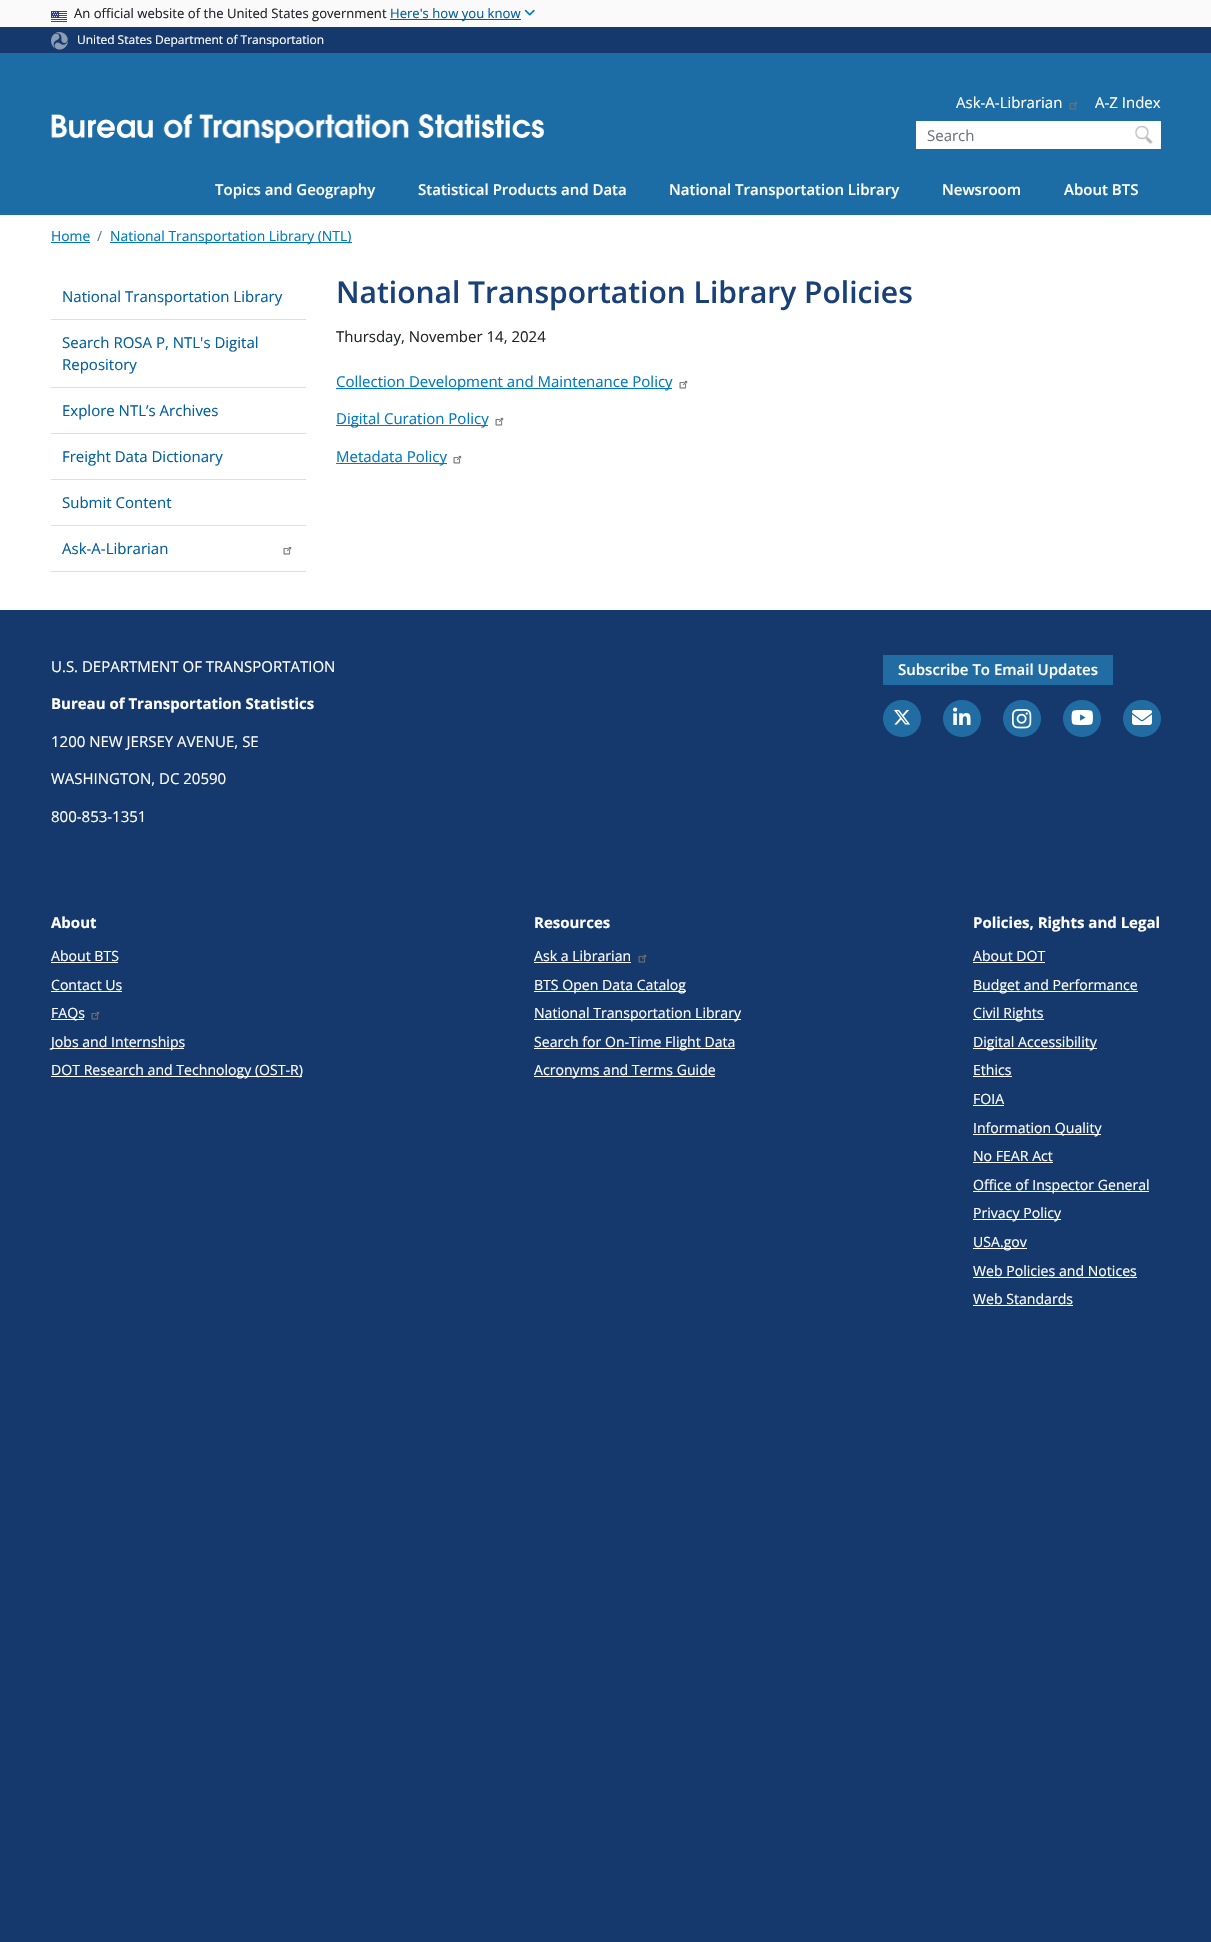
void draw(SkCanvas* canvas) {
	SkPaint fill;
	fill.setAntiAlias(true);
	auto makeFont = [&](const char* family, int weight, float size, bool italic = false) {
		SkFontStyle style(weight, SkFontStyle::kNormal_Width,
			italic ? SkFontStyle::kItalic_Slant : SkFontStyle::kUpright_Slant);
		SkFont result(fontMgr->matchFamilyStyle(family, style), size);
		result.setSubpixel(true);
		return result;
	};
	auto text = [&](const char* s, float x, float y, const SkFont& font) {
		canvas->drawString(s, x, y, font, fill);
	};
	auto box = [&](float l, float t, float r, float b) {
		canvas->drawRect(SkRect::MakeLTRB(l, t, r, b), fill);
	};
	auto roundBox = [&](float l, float t, float r, float b, float radius) {
		canvas->drawRoundRect(SkRect::MakeLTRB(l, t, r, b), radius, radius, fill);
	};
	auto picture = [&](const char* path, float l, float t, float r, float b) {
		auto image = SkImages::DeferredFromEncodedData(SkData::MakeFromFileName(path));
		canvas->drawImageRect(image, SkRect::MakeLTRB(l, t, r, b), SkSamplingOptions());
	};
	canvas->clear(0xFF15396C);
	fill.setColor(0xFFFFFFFF);
	box(0, 215, 1211, 610);
	fill.setColor(0xFFFAFAFA);
	box(0, 0, 1211, 27);
	picture("image0.png", 51, 11, 67, 22);
	fill.setColor(0xFF005EA2);
	box(390, 19, 521, 20);
	picture("image1.png", 524, 9, 535, 16);
	picture("image2.png", 51, 32, 68, 50);
	fill.setColor(0xFF1C6DA6);
	box(0, 53, 1211, 215);
	picture("image3.png", 51, 114, 544, 144);
	picture("image4.png", 1069, 101, 1078, 110);
	fill.setColor(0xFFFFFFFF);
	box(916, 121, 1161, 149);
	picture("image5.png", 1135, 126, 1153, 144);
	fill.setColor(0xFF0079C0);
	box(51, 242, 90, 243);
	box(110, 242, 352, 243);
	fill.setColor(0xFFDFDFDF);
	box(51, 319, 306, 320);
	box(51, 387, 306, 388);
	box(51, 433, 306, 434);
	box(51, 479, 306, 480);
	box(51, 525, 306, 526);
	box(51, 571, 306, 572);
	picture("image6.png", 283, 546, 292, 555);
	fill.setColor(0xFF0079C0);
	box(336, 388, 672, 389);
	picture("image6.png", 679, 380, 688, 389);
	box(336, 425, 488, 426);
	picture("image6.png", 495, 417, 504, 426);
	box(336, 463, 447, 464);
	picture("image6.png", 453, 455, 462, 464);
	fill.setColor(0xFF216DA3);
	box(883, 655, 1113, 685);
	roundBox(883, 700, 921, 737, 18.5f);
	picture("image7.png", 894, 709, 910, 725);
	roundBox(943, 700, 981, 737, 18.5f);
	picture("image8.png", 953, 707, 971, 725);
	roundBox(1003, 700, 1041, 737, 18.5f);
	picture("image9.png", 1012, 709, 1032, 729);
	roundBox(1063, 700, 1101, 737, 18.5f);
	picture("image10.png", 1071, 710, 1093, 725);
	roundBox(1123, 700, 1161, 737, 18.5f);
	picture("image11.png", 1132, 710, 1152, 725);
	fill.setColor(0xFFFFFFFF);
	box(51, 962, 118, 963);
	box(51, 991, 122, 992);
	box(51, 1019, 84, 1020);
	picture("image12.png", 91, 1011, 100, 1020);
	box(51, 1048, 184, 1049);
	box(51, 1076, 302, 1077);
	box(534, 962, 631, 963);
	picture("image12.png", 638, 954, 647, 963);
	box(534, 991, 686, 992);
	box(534, 1019, 741, 1020);
	box(534, 1048, 735, 1049);
	box(534, 1076, 715, 1077);
	box(973, 962, 1045, 963);
	box(973, 991, 1138, 992);
	box(973, 1019, 1044, 1020);
	box(973, 1048, 1097, 1049);
	box(973, 1076, 1012, 1077);
	box(973, 1105, 1004, 1106);
	box(973, 1134, 1101, 1135);
	box(973, 1162, 1053, 1163);
	box(973, 1191, 1149, 1192);
	box(973, 1219, 1061, 1220);
	box(973, 1248, 1027, 1249);
	box(973, 1277, 1137, 1278);
	box(973, 1305, 1073, 1306);
	auto font1 = makeFont("Open Sans", 400, 13.1f);
	fill.setColor(0xFF212529);
	text("An official website of the United States government", 74, 18, font1);
	fill.setColor(0xFF005EA2);
	text("Here's how you know", 390, 18, font1);
	auto font2 = makeFont("Open Sans", 400, 12);
	fill.setColor(0xFFFFFFFF);
	text("United States Department of Transportation", 77, 44, font2);
	auto font3 = makeFont("Open Sans", 400, 15);
	text("Ask-A-Librarian", 956, 108, font3);
	text("A-Z Index", 1095, 108, font3);
	fill.setColor(0xFF6C757D);
	text("Search", 927, 141, font3);
	auto font4 = makeFont("Open Sans", 600, 15);
	fill.setColor(0xFFFFFFFF);
	text("Topics and Geography", 215, 195, font4);
	text("Statistical Products and Data", 418, 195, font4);
	text("National Transportation Library", 669, 195, font4);
	text("Newsroom", 942, 195, font4);
	text("About BTS", 1064, 195, font4);
	auto font5 = makeFont("Open Sans", 400, 13.9f);
	fill.setColor(0xFF0079C0);
	text("Home", 51, 241, font5);
	fill.setColor(0xFF6C757D);
	text("/", 97, 241, font5);
	fill.setColor(0xFF0079C0);
	text("National Transportation Library (NTL)", 110, 241, font5);
	fill.setColor(0xFF005EA2);
	text("National Transportation Library", 62, 302, font3);
	text("Search ROSA P, NTL's Digital", 62, 348, font3);
	text("Repository", 62, 370, font3);
	text("Explore NTL’s Archives", 62, 416, font3);
	text("Freight Data Dictionary", 62, 462, font3);
	text("Submit Content", 62, 508, font3);
	text("Ask-A-Librarian", 62, 554, font3);
	auto font6 = makeFont("Open Sans", 600, 30);
	fill.setColor(0xFF194178);
	text("National Transportation Library Policies", 336, 303, font6);
	fill.setColor(0xFF212529);
	text("Thursday, November 14, 2024", 336, 342, font3);
	fill.setColor(0xFF0079C0);
	text("Collection Development and Maintenance Policy", 336, 387, font3);
	text("Digital Curation Policy", 336, 424, font3);
	text("Metadata Policy", 336, 462, font3);
	fill.setColor(0xFFFFFFFF);
	text("U.S. DEPARTMENT OF TRANSPORTATION", 51, 672, font3);
	auto font7 = makeFont("Open Sans", 700, 15);
	text("Bureau of Transportation Statistics", 51, 709, font7);
	text("1200 NEW JERSEY AVENUE, SE", 51, 747, font3);
	text("WASHINGTON, DC 20590", 51, 784, font3);
	text("800-853-1351", 51, 822, font3);
	text("Subscribe To Email Updates", 898, 675, font4);
	text("About", 51, 928, font7);
	auto font8 = makeFont("Open Sans", 400, 14.1f);
	text("About BTS", 51, 961, font8);
	text("Contact Us", 51, 990, font8);
	text("FAQs", 51, 1018, font8);
	text("Jobs and Internships", 51, 1047, font8);
	text("DOT Research and Technology (OST-R)", 51, 1075, font8);
	text("Resources", 534, 928, font7);
	text("Ask a Librarian", 534, 961, font8);
	text("BTS Open Data Catalog", 534, 990, font8);
	text("National Transportation Library", 534, 1018, font8);
	text("Search for On-Time Flight Data", 534, 1047, font8);
	text("Acronyms and Terms Guide", 534, 1075, font8);
	text("Policies, Rights and Legal", 973, 928, font7);
	text("About DOT", 973, 961, font8);
	text("Budget and Performance", 973, 990, font8);
	text("Civil Rights", 973, 1018, font8);
	text("Digital Accessibility", 973, 1047, font8);
	text("Ethics", 973, 1075, font8);
	text("FOIA", 973, 1104, font8);
	text("Information Quality", 973, 1133, font8);
	text("No FEAR Act", 973, 1161, font8);
	text("Office of Inspector General", 973, 1190, font8);
	text("Privacy Policy", 973, 1218, font8);
	text("USA.gov", 973, 1247, font8);
	text("Web Policies and Notices", 973, 1276, font8);
	text("Web Standards", 973, 1304, font8);
}
